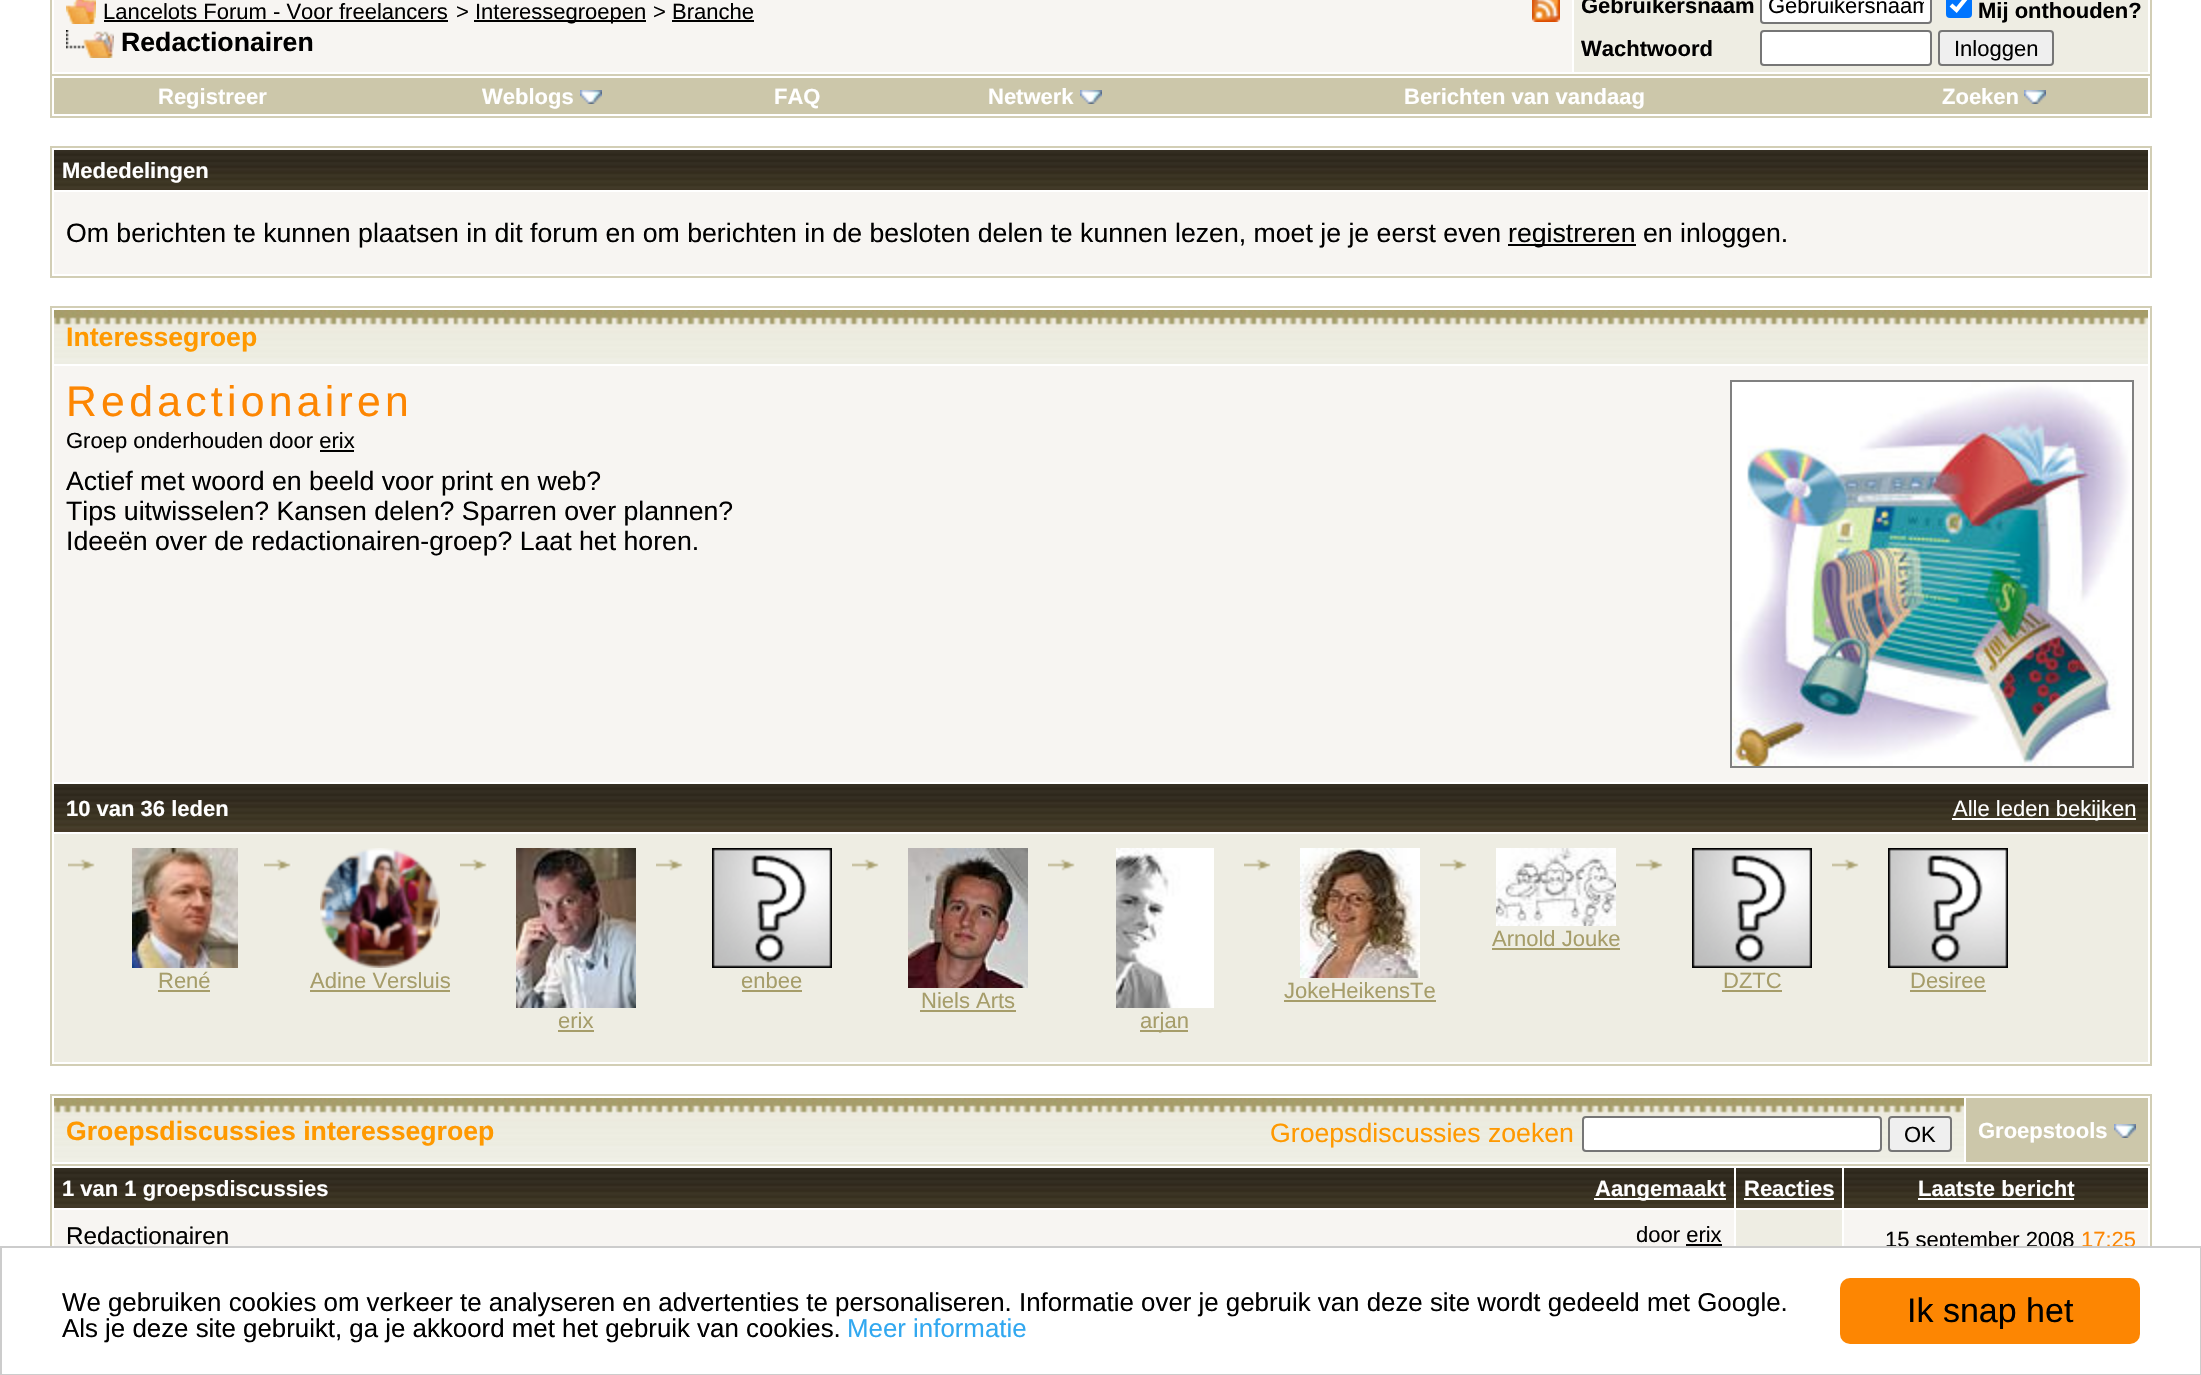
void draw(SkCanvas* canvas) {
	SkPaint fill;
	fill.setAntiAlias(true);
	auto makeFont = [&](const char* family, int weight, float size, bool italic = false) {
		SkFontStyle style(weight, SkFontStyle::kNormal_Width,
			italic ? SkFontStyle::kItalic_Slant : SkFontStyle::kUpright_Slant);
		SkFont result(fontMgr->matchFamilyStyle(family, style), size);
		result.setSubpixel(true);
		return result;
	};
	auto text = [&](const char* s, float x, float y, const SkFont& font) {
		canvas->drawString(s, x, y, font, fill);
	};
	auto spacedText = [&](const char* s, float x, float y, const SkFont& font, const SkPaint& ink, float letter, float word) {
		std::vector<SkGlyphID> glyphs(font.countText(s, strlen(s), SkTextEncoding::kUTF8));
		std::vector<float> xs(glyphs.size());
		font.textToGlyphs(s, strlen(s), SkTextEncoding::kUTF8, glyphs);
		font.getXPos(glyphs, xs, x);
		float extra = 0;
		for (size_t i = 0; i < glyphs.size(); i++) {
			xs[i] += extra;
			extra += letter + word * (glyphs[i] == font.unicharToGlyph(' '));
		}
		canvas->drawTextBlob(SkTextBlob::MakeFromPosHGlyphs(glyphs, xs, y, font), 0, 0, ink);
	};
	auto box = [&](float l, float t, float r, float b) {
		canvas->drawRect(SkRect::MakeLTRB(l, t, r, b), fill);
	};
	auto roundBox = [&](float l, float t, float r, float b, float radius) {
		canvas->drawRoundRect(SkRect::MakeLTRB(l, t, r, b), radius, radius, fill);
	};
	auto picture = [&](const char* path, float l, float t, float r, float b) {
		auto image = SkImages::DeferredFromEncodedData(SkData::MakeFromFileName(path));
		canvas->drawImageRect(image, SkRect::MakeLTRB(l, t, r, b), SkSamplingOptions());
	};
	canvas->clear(0xFFFFFFFF);
	fill.setStyle(SkPaint::kStroke_Style);
	fill.setStrokeWidth(2);
	fill.setColor(0xFFD2CEB5);
	canvas->drawRect(SkRect::MakeLTRB(51, -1, 2151, 75), fill);
	fill.setStyle(SkPaint::kFill_Style);
	fill.setColor(0xFFF7F5F2);
	box(54, 0, 1572, 72);
	picture("image0.png", 66, 0, 96, 24);
	fill.setColor(0xFF000000);
	box(104, 20, 448, 22);
	box(474, 20, 646, 22);
	box(672, 20, 754, 22);
	picture("image1.png", 66, 30, 114, 58);
	picture("image2.png", 1532, 0, 1560, 22);
	fill.setColor(0xFFEEEDE3);
	box(1574, 0, 2148, 72);
	fill.setColor(0xFFFFFFFF);
	canvas->drawRoundRect(SkRect::MakeLTRB(1761, -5, 1931, 23), 3, 3, fill);
	fill.setStyle(SkPaint::kStroke_Style);
	fill.setColor(0xFF767676);
	canvas->drawRoundRect(SkRect::MakeLTRB(1761, -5, 1931, 23), 3, 3, fill);
	fill.setStyle(SkPaint::kFill_Style);
	fill.setColor(0xFF0075FF);
	roundBox(1946, -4, 1972, 18, 4);
	fill.setStyle(SkPaint::kStroke_Style);
	fill.setStrokeWidth(4.2f);
	fill.setColor(0xFFFFFFFF);
	canvas->drawPath(SkPathBuilder().moveTo(1951, 5).lineTo(1956.5f, 10).lineTo(1967, -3).detach(), fill);
	fill.setStyle(SkPaint::kFill_Style);
	canvas->drawRoundRect(SkRect::MakeLTRB(1761, 31, 1931, 65), 3, 3, fill);
	fill.setStyle(SkPaint::kStroke_Style);
	fill.setStrokeWidth(2);
	fill.setColor(0xFF767676);
	canvas->drawRoundRect(SkRect::MakeLTRB(1761, 31, 1931, 65), 3, 3, fill);
	fill.setStyle(SkPaint::kFill_Style);
	fill.setColor(0xFFEFEFEF);
	canvas->drawRoundRect(SkRect::MakeLTRB(1939, 31, 2053, 65), 3, 3, fill);
	fill.setStyle(SkPaint::kStroke_Style);
	fill.setColor(0xFF767676);
	canvas->drawRoundRect(SkRect::MakeLTRB(1939, 31, 2053, 65), 3, 3, fill);
	fill.setStyle(SkPaint::kFill_Style);
	fill.setColor(0xFFD2CEB5);
	box(2150, 76, 2152, 118);
	box(50, 116, 2152, 118);
	box(50, 76, 52, 118);
	fill.setColor(0xFFCCC7AA);
	box(54, 78, 2148, 114);
	picture("image3.png", 580, 90, 602, 104);
	picture("image3.png", 1080, 90, 1102, 104);
	picture("image3.png", 2024, 90, 2046, 104);
	fill.setStyle(SkPaint::kStroke_Style);
	fill.setColor(0xFFD2CEB5);
	canvas->drawRect(SkRect::MakeLTRB(51, 147, 2151, 277), fill);
	picture("image4.png", 54, 150, 2148, 190);
	fill.setStyle(SkPaint::kFill_Style);
	fill.setColor(0xFFF7F5F2);
	box(54, 192, 2148, 274);
	fill.setColor(0xFF000000);
	box(1508, 244, 1636, 246);
	fill.setStyle(SkPaint::kStroke_Style);
	fill.setColor(0xFFD2CEB5);
	canvas->drawRect(SkRect::MakeLTRB(51, 307, 2151, 1065), fill);
	picture("image5.png", 54, 310, 2148, 364);
	fill.setStyle(SkPaint::kFill_Style);
	fill.setColor(0xFFF7F5F2);
	box(54, 366, 2148, 782);
	fill.setStyle(SkPaint::kStroke_Style);
	fill.setColor(0xFF808080);
	canvas->drawRect(SkRect::MakeLTRB(1731, 381, 2133, 767), fill);
	picture("image6.png", 1732, 382, 2132, 766);
	fill.setStyle(SkPaint::kFill_Style);
	fill.setColor(0xFF000000);
	box(320, 450, 354, 452);
	picture("image7.png", 54, 784, 2148, 832);
	fill.setColor(0xFFFFFFFF);
	box(1952, 818, 2136, 820);
	fill.setColor(0xFFEEEDE3);
	box(54, 834, 2148, 1062);
	picture("image8.png", 1440, 859, 1468, 871);
	picture("image9.png", 1496, 848, 1616, 926);
	fill.setColor(0xFFA69D6A);
	box(1492, 948, 1620, 950);
	picture("image8.png", 68, 859, 96, 871);
	picture("image10.png", 132, 848, 238, 968);
	box(158, 990, 210, 992);
	picture("image8.png", 264, 859, 292, 871);
	picture("image11.png", 320, 848, 440, 968);
	box(310, 990, 450, 992);
	picture("image8.png", 656, 859, 684, 871);
	picture("image12.png", 712, 848, 832, 968);
	box(742, 990, 802, 992);
	picture("image8.png", 852, 859, 880, 871);
	picture("image13.png", 908, 848, 1028, 988);
	box(920, 1010, 1016, 1012);
	picture("image8.png", 1244, 859, 1272, 871);
	picture("image14.png", 1300, 848, 1420, 978);
	box(1284, 1000, 1436, 1002);
	picture("image8.png", 1636, 859, 1664, 871);
	picture("image12.png", 1692, 848, 1812, 968);
	box(1722, 990, 1782, 992);
	picture("image8.png", 1832, 859, 1860, 871);
	picture("image12.png", 1888, 848, 2008, 968);
	box(1910, 990, 1986, 992);
	picture("image8.png", 460, 859, 488, 871);
	picture("image15.png", 516, 848, 636, 1008);
	box(558, 1030, 594, 1032);
	picture("image8.png", 1048, 859, 1076, 871);
	picture("image16.png", 1116, 848, 1214, 1008);
	box(1140, 1030, 1188, 1032);
	fill.setColor(0xFFD2CEB5);
	box(50, 1094, 2152, 1096);
	box(2150, 1094, 2152, 1164);
	box(50, 1094, 52, 1164);
	picture("image17.png", 54, 1098, 1964, 1162);
	fill.setColor(0xFFFFFFFF);
	canvas->drawRoundRect(SkRect::MakeLTRB(1583, 1117, 1881, 1151), 3, 3, fill);
	fill.setStyle(SkPaint::kStroke_Style);
	fill.setColor(0xFF767676);
	canvas->drawRoundRect(SkRect::MakeLTRB(1583, 1117, 1881, 1151), 3, 3, fill);
	fill.setStyle(SkPaint::kFill_Style);
	fill.setColor(0xFFEFEFEF);
	canvas->drawRoundRect(SkRect::MakeLTRB(1889, 1117, 1951, 1151), 3, 3, fill);
	fill.setStyle(SkPaint::kStroke_Style);
	fill.setColor(0xFF767676);
	canvas->drawRoundRect(SkRect::MakeLTRB(1889, 1117, 1951, 1151), 3, 3, fill);
	fill.setStyle(SkPaint::kFill_Style);
	fill.setColor(0xFFCCC7AA);
	box(1966, 1098, 2148, 1162);
	picture("image3.png", 2114, 1124, 2136, 1138);
	fill.setStyle(SkPaint::kStroke_Style);
	fill.setColor(0xFFD2CEB5);
	canvas->drawRect(SkRect::MakeLTRB(51, 1165, 2151, 1297), fill);
	picture("image18.png", 54, 1168, 1734, 1208);
	fill.setStyle(SkPaint::kFill_Style);
	fill.setColor(0xFFFFFFFF);
	box(1594, 1198, 1726, 1200);
	picture("image19.png", 1736, 1168, 1842, 1208);
	box(1744, 1198, 1834, 1200);
	picture("image20.png", 1844, 1168, 2148, 1208);
	box(1918, 1198, 2074, 1200);
	fill.setColor(0xFFF7F5F2);
	box(54, 1210, 1734, 1246);
	fill.setColor(0xFF000000);
	box(1686, 1244, 1722, 1246);
	fill.setColor(0xFFEEEDE3);
	box(1736, 1210, 1842, 1246);
	fill.setColor(0xFFF7F5F2);
	box(1844, 1210, 2148, 1246);
	auto font1 = makeFont("Liberation Sans", 400, 22);
	fill.setColor(0xFF000000);
	text("Lancelots Forum - Voor freelancers", 103, 19, font1);
	text(">", 456, 19, font1);
	text("Interessegroepen", 475, 19, font1);
	text("> Branche", 653, 19, font1);
	auto font2 = makeFont("Liberation Sans", 700, 26.67f);
	text("Redactionairen", 121, 51, font2);
	auto font3 = makeFont("Liberation Sans", 700, 22);
	text("Gebruikersnaam", 1581, 13, font3);
	canvas->save();
	canvas->clipRect(SkRect::MakeLTRB(1768, 0, 1924, 18));
	text("Gebruikersnaam", 1768, 13, font1);
	canvas->restore();
	text("Mij onthouden?", 1978, 18, font3);
	text("Wachtwoord", 1581, 56, font3);
	text("Inloggen", 1954, 56, font1);
	fill.setColor(0xFFFFFFFF);
	text("Registreer", 158, 104, font3);
	text("Weblogs", 482, 104, font3);
	text("FAQ", 774, 104, font3);
	text("Netwerk", 988, 104, font3);
	text("Berichten van vandaag", 1404, 104, font3);
	text("Zoeken", 1942, 104, font3);
	text("Mededelingen", 62, 178, font3);
	auto font4 = makeFont("Liberation Sans", 400, 26.67f);
	fill.setColor(0xFF000000);
	text("Om berichten te kunnen plaatsen in dit forum en om berichten in de besloten delen te kunnen lezen, moet je je eerst even", 66, 242, font4);
	text("registreren en inloggen.", 1508, 242, font4);
	fill.setColor(0xFFFF9900);
	text("Interessegroep", 66, 346, font2);
	auto font5 = makeFont("Liberation Sans", 400, 42.75f);
	fill.setColor(0xFFFD8602);
	spacedText("Redactionairen", 66, 416, font5, fill, 4.25f, 0);
	fill.setColor(0xFF000000);
	text("Groep onderhouden door erix", 66, 448, font1);
	text("Actief met woord en beeld voor print en web?", 66, 490, font4);
	text("Tips uitwisselen? Kansen delen? Sparren over plannen?", 66, 520, font4);
	text("Ideeën over de redactionairen-groep? Laat het horen.", 66, 550, font4);
	fill.setColor(0xFFFFFFFF);
	text("10 van 36 leden", 66, 816, font3);
	text("Alle leden bekijken", 1953, 816, font1);
	fill.setColor(0xFFA69D6A);
	text("Arnold Jouke", 1492, 946, font1);
	text("René", 158, 988, font1);
	text("Adine Versluis", 310, 988, font1);
	text("enbee", 741, 988, font1);
	text("Niels Arts", 921, 1008, font1);
	text("JokeHeikensTe", 1284, 998, font1);
	text("DZTC", 1723, 988, font1);
	text("Desiree", 1910, 988, font1);
	text("erix", 558, 1028, font1);
	text("arjan", 1140, 1028, font1);
	fill.setColor(0xFFFF9900);
	text("Groepsdiscussies interessegroep", 66, 1140, font2);
	text("Groepsdiscussies zoeken", 1270, 1142, font4);
	fill.setColor(0xFF000000);
	text("OK", 1904, 1142, font1);
	fill.setColor(0xFFFFFFFF);
	text("Groepstools", 1978, 1138, font3);
	text("1 van 1 groepsdiscussies", 62, 1196, font3);
	text("Aangemaakt", 1595, 1196, font3);
	text("Reacties", 1744, 1196, font3);
	text("Laatste bericht", 1918, 1196, font3);
	auto font6 = makeFont("Liberation Sans", 400, 24.25f);
	fill.setColor(0xFF000000);
	text("Redactionairen", 66, 1244, font6);
	text("door erix", 1636, 1242, font1);
	text("15 september 2008", 1885, 1247, font1);
	fill.setColor(0xFFFD8602);
	text("17:25", 2081, 1247, font1);
	fill.setColor(0xFFFFFFFF);
	box(50, 1248, 2152, 1298);
	fill.setStyle(SkPaint::kStroke_Style);
	fill.setColor(0xFFCCCCCC);
	canvas->drawRect(SkRect::MakeLTRB(1, 1247, 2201, 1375), fill);
	auto font7 = makeFont("Liberation Sans", 400, 25.85f);
	fill.setStyle(SkPaint::kFill_Style);
	fill.setColor(0xFF000000);
	text("We gebruiken cookies om verkeer te analyseren en advertenties te personaliseren. Informatie over je gebruik van deze site wordt gedeeld met Google.", 62, 1311, font7);
	text("Als je deze site gebruikt, ga je akkoord met het gebruik van cookies.", 62, 1337, font7);
	fill.setColor(0xFF31A8F0);
	text("Meer informatie", 847, 1337, font7);
	fill.setColor(0xFFFD8602);
	roundBox(1840, 1278, 2140, 1344, 10);
	auto font8 = makeFont("Liberation Sans", 400, 34);
	fill.setColor(0xFF000000);
	text("Ik snap het", 1907, 1322, font8);
}
